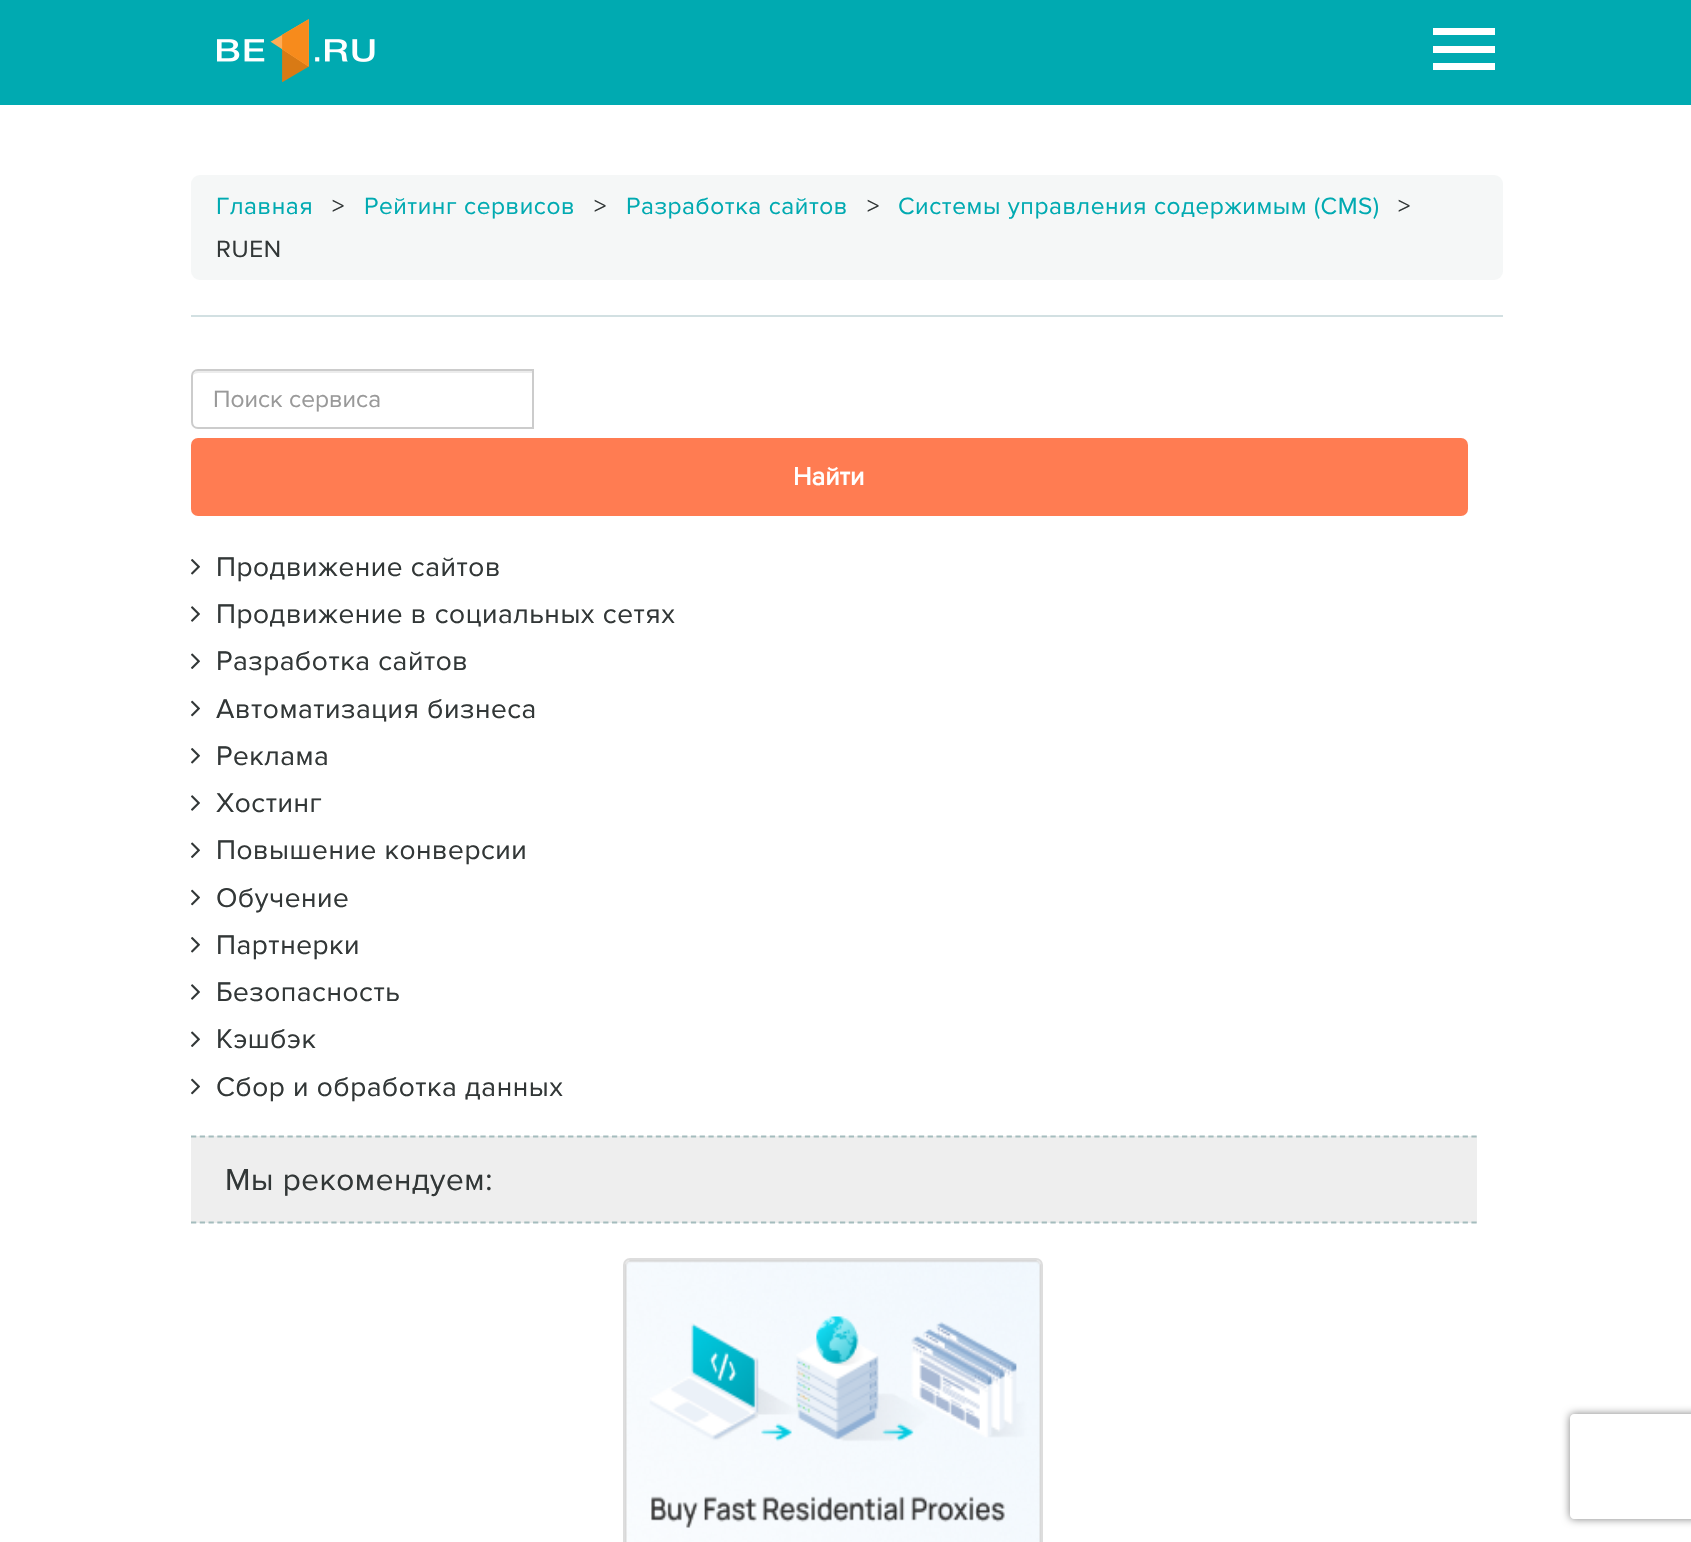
void draw(SkCanvas* canvas) {
	SkPaint fill;
	fill.setAntiAlias(true);
	auto makeFont = [&](const char* family, int weight, float size, bool italic = false) {
		SkFontStyle style(weight, SkFontStyle::kNormal_Width,
			italic ? SkFontStyle::kItalic_Slant : SkFontStyle::kUpright_Slant);
		SkFont result(fontMgr->matchFamilyStyle(family, style), size);
		result.setSubpixel(true);
		return result;
	};
	auto text = [&](const char* s, float x, float y, const SkFont& font) {
		canvas->drawString(s, x, y, font, fill);
	};
	auto spacedText = [&](const char* s, float x, float y, const SkFont& font, const SkPaint& ink, float letter, float word) {
		std::vector<SkGlyphID> glyphs(font.countText(s, strlen(s), SkTextEncoding::kUTF8));
		std::vector<float> xs(glyphs.size());
		font.textToGlyphs(s, strlen(s), SkTextEncoding::kUTF8, glyphs);
		font.getXPos(glyphs, xs, x);
		float extra = 0;
		for (size_t i = 0; i < glyphs.size(); i++) {
			xs[i] += extra;
			extra += letter + word * (glyphs[i] == font.unicharToGlyph(' '));
		}
		canvas->drawTextBlob(SkTextBlob::MakeFromPosHGlyphs(glyphs, xs, y, font), 0, 0, ink);
	};
	auto box = [&](float l, float t, float r, float b) {
		canvas->drawRect(SkRect::MakeLTRB(l, t, r, b), fill);
	};
	auto roundBox = [&](float l, float t, float r, float b, float radius) {
		canvas->drawRoundRect(SkRect::MakeLTRB(l, t, r, b), radius, radius, fill);
	};
	auto picture = [&](const char* path, float l, float t, float r, float b) {
		auto image = SkImages::DeferredFromEncodedData(SkData::MakeFromFileName(path));
		canvas->drawImageRect(image, SkRect::MakeLTRB(l, t, r, b), SkSamplingOptions());
	};
	canvas->clear(0xFFFFFFFF);
	fill.setColor(0xFF00AAB1);
	box(0, 0, 1691, 105);
	picture("image0.png", 217, 19, 375, 82);
	fill.setColor(0xFFFFFFFF);
	box(1433, 28, 1495, 35);
	box(1433, 46, 1495, 53);
	box(1433, 63, 1495, 70);
	fill.setColor(0xFFF5F7F7);
	roundBox(191, 175, 1503, 280, 9);
	fill.setColor(0xFFD2E0E2);
	box(191, 315, 1503, 317);
	fill.setColor(0xFFECECEC);
	canvas->drawPath(SkPathBuilder().moveTo(198, 373).lineTo(532, 373).lineTo(532, 371).lineTo(198, 371).cubicTo(196, 371, 193, 373, 193, 375).cubicTo(194, 374, 196, 373, 198, 373).close().detach(), fill);
	fill.setStyle(SkPaint::kStroke_Style);
	fill.setStrokeWidth(2);
	fill.setColor(0xFFCCCCCC);
	canvas->drawPath(SkPathBuilder().moveTo(198, 370).lineTo(533, 370).lineTo(533, 428).lineTo(198, 428).cubicTo(194.5f, 428, 192, 425.5f, 192, 422).lineTo(192, 376).cubicTo(192, 372.5f, 194.5f, 370, 198, 370).close().detach(), fill);
	fill.setStyle(SkPaint::kFill_Style);
	fill.setColor(0xFFFF7C52);
	roundBox(191, 438, 1468, 516, 7);
	picture("image1.png", 191, 559, 200, 575);
	picture("image2.png", 191, 606, 200, 622);
	picture("image3.png", 191, 653, 200, 669);
	picture("image4.png", 191, 700, 200, 717);
	picture("image1.png", 191, 748, 200, 764);
	picture("image2.png", 191, 795, 200, 811);
	picture("image3.png", 191, 842, 200, 858);
	picture("image4.png", 191, 889, 200, 906);
	picture("image1.png", 191, 937, 200, 953);
	picture("image2.png", 191, 984, 200, 1000);
	picture("image3.png", 191, 1031, 200, 1047);
	picture("image4.png", 191, 1078, 200, 1095);
	fill.setColor(0xFFEEEEEE);
	box(191, 1136, 1477, 1223);
	fill.setStyle(SkPaint::kStroke_Style);
	fill.setStrokeWidth(1.8f);
	fill.setColor(0xFFA4BCBD);
	fill.setPathEffect(SkDashPathEffect::Make({{5.25f, 3.52f}}, 0));
	canvas->drawPath(SkPathBuilder().moveTo(191, 1136.5f).lineTo(1477, 1136.5f).detach(), fill);
	fill.setPathEffect(nullptr);
	fill.setPathEffect(SkDashPathEffect::Make({{5.25f, 3.52f}}, 0));
	canvas->drawPath(SkPathBuilder().moveTo(191, 1222.5f).lineTo(1477, 1222.5f).detach(), fill);
	fill.setPathEffect(nullptr);
	fill.setStrokeWidth(2);
	fill.setColor(0xFFDDDDDD);
	canvas->drawRoundRect(SkRect::MakeLTRB(624, 1259, 1042, 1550), 6, 6, fill);
	picture("image5.png", 625, 1260, 1041, 1542);
	canvas->save();
	canvas->clipPath(SkPathBuilder(SkPathFillType::kEvenOdd).moveTo(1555, 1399).lineTo(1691, 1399).lineTo(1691, 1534).lineTo(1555, 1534).close().moveTo(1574, 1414).lineTo(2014, 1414).cubicTo(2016, 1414, 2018, 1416, 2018, 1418).lineTo(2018, 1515).cubicTo(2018, 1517, 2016, 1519, 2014, 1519).lineTo(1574, 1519).cubicTo(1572, 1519, 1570, 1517, 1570, 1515).lineTo(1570, 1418).cubicTo(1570, 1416, 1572, 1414, 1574, 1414).close().detach(), true);
	fill.setStyle(SkPaint::kFill_Style);
	fill.setColor(0xFF808080);
	fill.setMaskFilter(SkMaskFilter::MakeBlur(kNormal_SkBlurStyle, 4.5f));
	canvas->drawRoundRect(SkRect::MakeLTRB(1570, 1414, 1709, 1519), 4, 4, fill);
	fill.setMaskFilter(nullptr);
	canvas->restore();
	auto font1 = makeFont("Proxima Nova", 400, 24.5f);
	fill.setColor(0xFF00AAB1);
	spacedText("Главная", 216, 214, font1, fill, 0.55f, 0);
	fill.setColor(0xFF323737);
	spacedText(">", 332, 214, font1, fill, 0.55f, 0);
	fill.setColor(0xFF00AAB1);
	spacedText("Рейтинг сервисов", 364, 214, font1, fill, 0.55f, 0);
	fill.setColor(0xFF323737);
	spacedText(">", 594, 214, font1, fill, 0.55f, 0);
	fill.setColor(0xFF00AAB1);
	spacedText("Разработка сайтов", 626, 214, font1, fill, 0.55f, 0);
	fill.setColor(0xFF323737);
	spacedText(">", 867, 214, font1, fill, 0.55f, 0);
	fill.setColor(0xFF00AAB1);
	spacedText("Системы управления содержимым (CMS)", 898, 214, font1, fill, 0.55f, 0);
	fill.setColor(0xFF323737);
	spacedText(">", 1398, 214, font1, fill, 0.55f, 0);
	spacedText("RUEN", 216, 257, font1, fill, 0.55f, 0);
	fill.setColor(0xFF999999);
	text("Поиск сервиса", 213, 407, font1);
	auto font2 = makeFont("Proxima Nova", 700, 26);
	fill.setColor(0xFFFFFFFF);
	text("Найти", 793, 485, font2);
	auto font3 = makeFont("Proxima Nova", 400, 28);
	fill.setColor(0xFF323737);
	spacedText("Продвижение сайтов", 216, 576, font3, fill, 0.55f, 0);
	spacedText("Продвижение в социальных сетях", 216, 623, font3, fill, 0.55f, 0);
	spacedText("Разработка сайтов", 216, 670, font3, fill, 0.55f, 0);
	spacedText("Автоматизация бизнеса", 216, 718, font3, fill, 0.55f, 0);
	spacedText("Реклама", 216, 765, font3, fill, 0.55f, 0);
	spacedText("Хостинг", 216, 812, font3, fill, 0.55f, 0);
	spacedText("Повышение конверсии", 216, 859, font3, fill, 0.55f, 0);
	spacedText("Обучение", 216, 907, font3, fill, 0.55f, 0);
	spacedText("Партнерки", 216, 954, font3, fill, 0.55f, 0);
	spacedText("Безопасность", 216, 1001, font3, fill, 0.55f, 0);
	spacedText("Кэшбэк", 216, 1048, font3, fill, 0.55f, 0);
	spacedText("Сбор и обработка данных", 216, 1096, font3, fill, 0.55f, 0);
	auto font4 = makeFont("Proxima Nova", 400, 31.5f);
	spacedText("Мы рекомендуем:", 225, 1190, font4, fill, 0.55f, 0);
}
